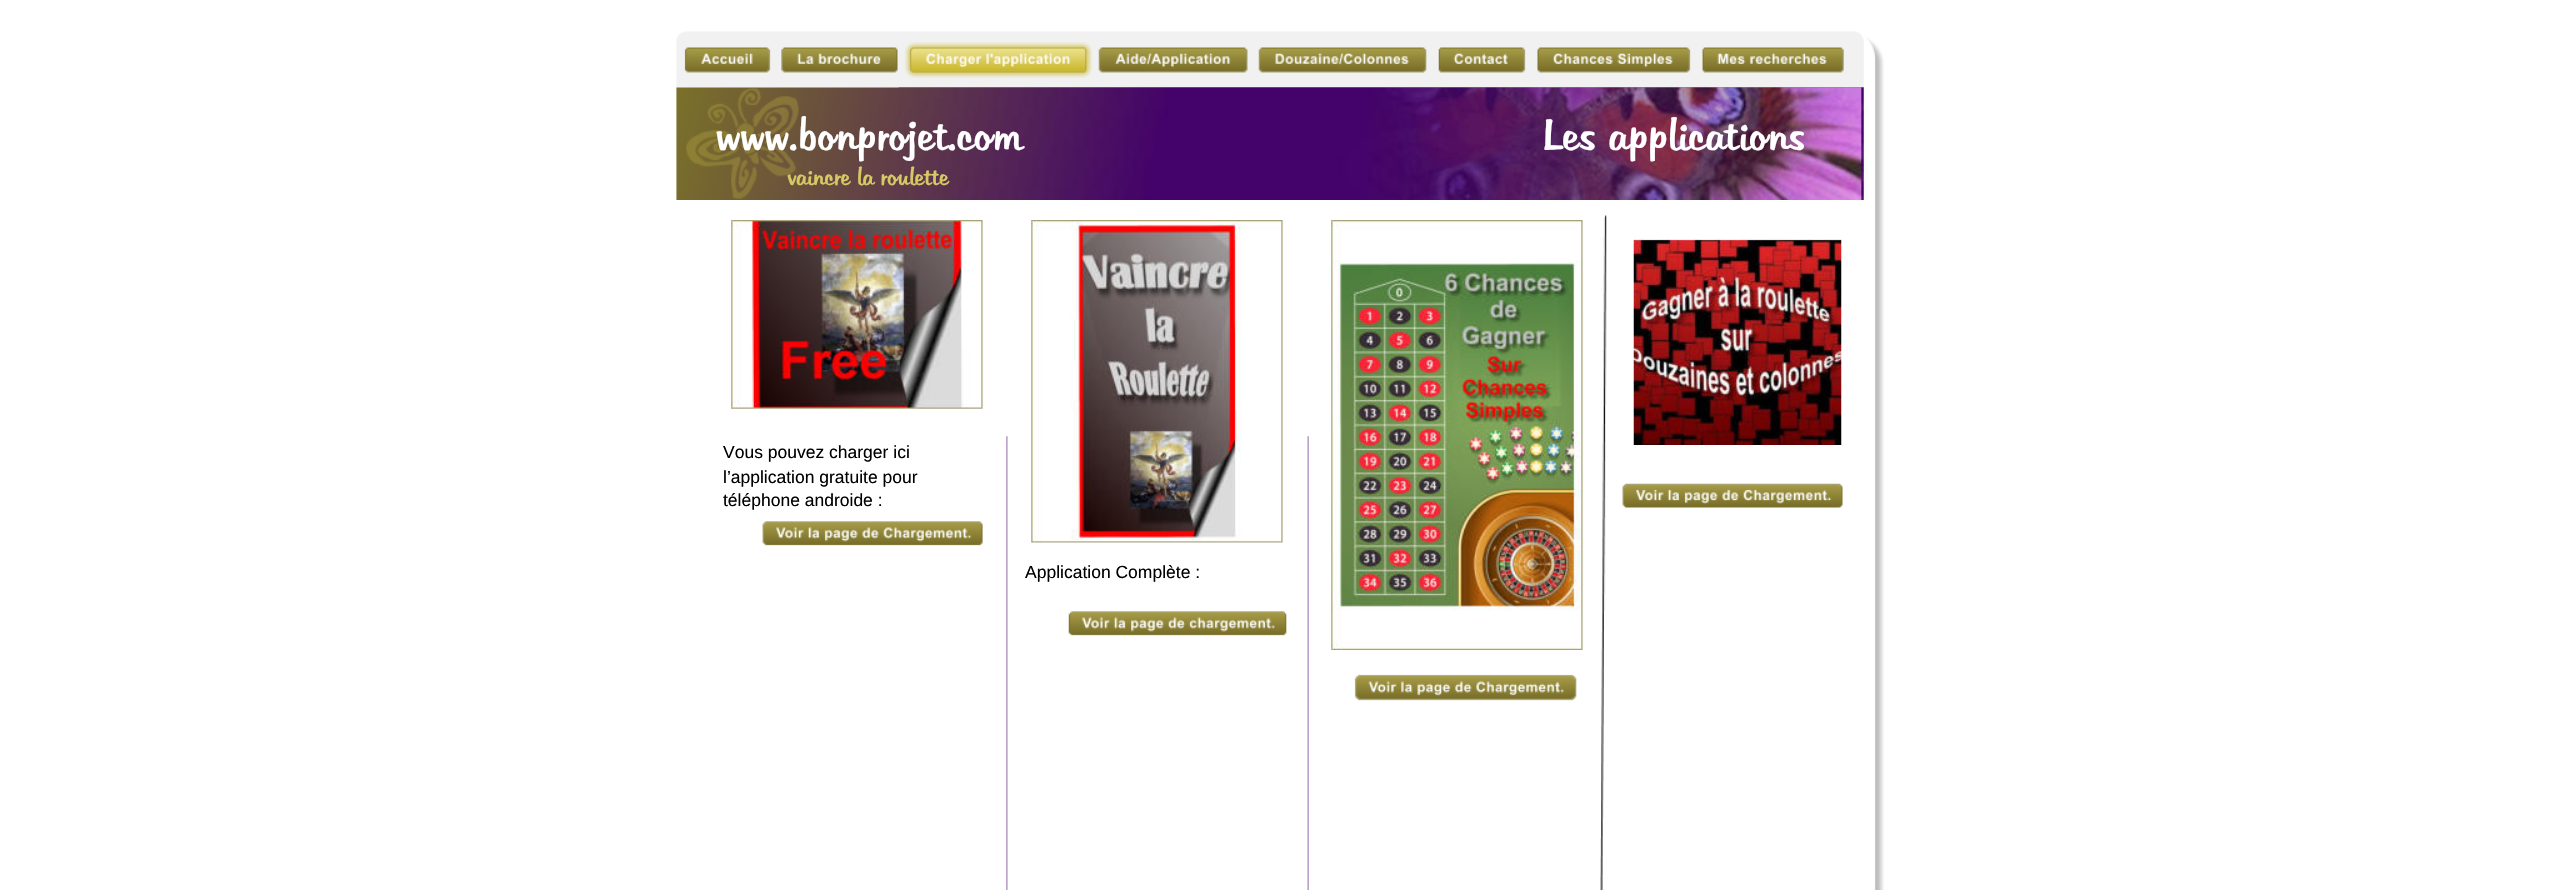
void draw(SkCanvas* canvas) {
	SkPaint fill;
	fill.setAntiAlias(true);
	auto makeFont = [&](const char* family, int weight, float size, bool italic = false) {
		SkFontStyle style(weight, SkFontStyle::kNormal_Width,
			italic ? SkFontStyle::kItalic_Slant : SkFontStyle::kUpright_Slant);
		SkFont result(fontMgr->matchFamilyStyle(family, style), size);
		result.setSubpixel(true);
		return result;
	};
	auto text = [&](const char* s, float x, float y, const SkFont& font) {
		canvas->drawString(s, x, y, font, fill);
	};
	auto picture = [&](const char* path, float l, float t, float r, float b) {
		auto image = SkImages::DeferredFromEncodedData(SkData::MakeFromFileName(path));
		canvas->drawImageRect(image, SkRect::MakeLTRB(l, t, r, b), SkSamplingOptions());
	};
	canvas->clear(0xFFFFFFFF);
	picture("image0.png", 1006, 436, 1008, 890);
	picture("image1.png", 1307, 436, 1309, 890);
	picture("image2.png", 1866, 37, 1884, 890);
	picture("image3.png", 676, 31, 1864, 200);
	picture("image4.png", 684, 47, 771, 73);
	picture("image5.png", 781, 47, 898, 73);
	picture("image7.png", 909, 47, 1087, 73);
	picture("image6.png", 904, 42, 1093, 78);
	picture("image8.png", 1098, 47, 1248, 73);
	picture("image9.png", 1258, 47, 1427, 73);
	picture("image10.png", 1438, 47, 1526, 73);
	picture("image11.png", 1537, 47, 1691, 73);
	picture("image12.png", 1702, 47, 1844, 73);
	picture("image14.png", 898, 87, 1869, 200);
	picture("image15.png", 731, 220, 984, 409);
	picture("image16.png", 1031, 220, 1284, 543);
	picture("image17.png", 1331, 220, 1584, 650);
	picture("image18.png", 1600, 215, 1607, 890);
	picture("image19.png", 1633, 238, 1842, 445);
	picture("image20.png", 1622, 483, 1843, 508);
	picture("image21.png", 762, 521, 983, 546);
	picture("image22.png", 1068, 611, 1287, 636);
	picture("image23.png", 1354, 674, 1577, 701);
	auto font1 = makeFont("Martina", 100, 42.5f);
	fill.setColor(0xFFFFFFFF);
	text("Les applications", 1542, 150, font1);
	auto font2 = makeFont("Martina", 100, 23.75f);
	fill.setColor(0xFFD5C865);
	text("vaincre la roulette", 788, 185, font2);
	picture("image13.png", 686, 87, 799, 199);
	fill.setColor(0xFFFFFFFF);
	text("www.bonprojet.com", 716, 150, font1);
	auto font3 = makeFont("Liberation Sans", 400, 17.5f);
	fill.setColor(0xFF000000);
	text("Vous pouvez charger ici", 723, 458, font3);
	text("l’application gratuite pour", 723, 483, font3);
	text("téléphone androide :", 723, 506, font3);
	text("Application Complète :", 1025, 578, font3);
}
